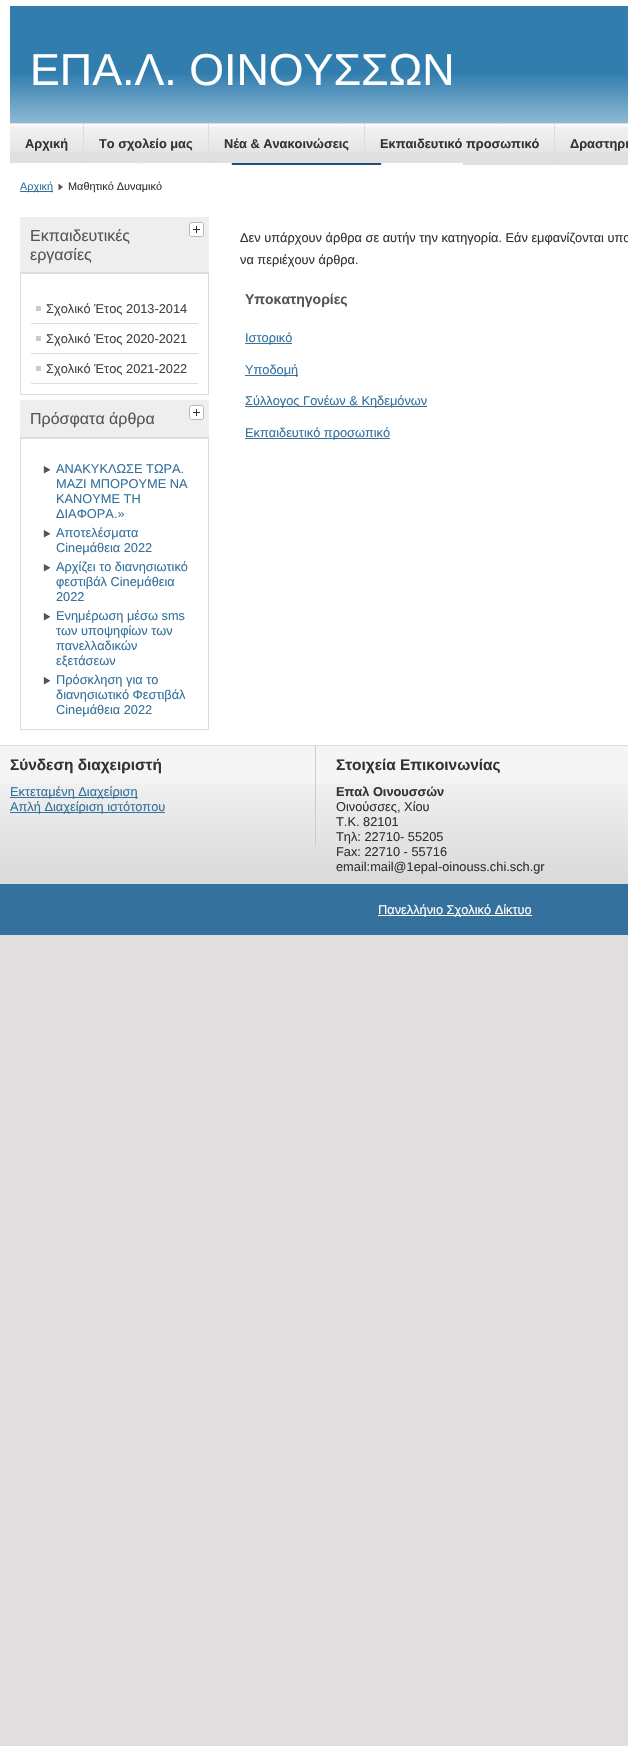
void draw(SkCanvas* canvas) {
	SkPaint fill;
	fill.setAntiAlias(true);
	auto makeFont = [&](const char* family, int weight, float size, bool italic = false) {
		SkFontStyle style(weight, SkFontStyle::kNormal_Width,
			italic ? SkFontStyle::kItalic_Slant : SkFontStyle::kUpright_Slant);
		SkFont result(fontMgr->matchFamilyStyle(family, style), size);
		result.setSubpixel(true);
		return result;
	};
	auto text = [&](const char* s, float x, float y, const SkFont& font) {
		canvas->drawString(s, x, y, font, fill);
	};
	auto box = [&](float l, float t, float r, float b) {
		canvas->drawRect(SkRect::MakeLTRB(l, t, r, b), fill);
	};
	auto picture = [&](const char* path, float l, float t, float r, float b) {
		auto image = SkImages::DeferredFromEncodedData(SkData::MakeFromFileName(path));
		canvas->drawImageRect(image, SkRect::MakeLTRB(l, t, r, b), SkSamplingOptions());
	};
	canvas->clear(0xFFE0DEDF);
	fill.setColor(0xFFFFFFFF);
	box(0, 0, 628, 745);
	fill.setColor(0xFF317DAE);
	box(10, 6, 628, 75);
	picture("image0.png", 10, 75, 628, 123);
	fill.setColor(0xFFE0E0E0);
	box(464, 163, 628, 165);
	fill.setColor(0xFFDDDDDD);
	box(10, 123, 628, 124);
	fill.setColor(0xFFE0E0E0);
	box(10, 152, 83, 163);
	picture("image1.png", 10, 124, 83, 152);
	fill.setColor(0xFFDDDDDD);
	box(83, 124, 84, 163);
	fill.setColor(0xFFE0E0E0);
	box(84, 152, 208, 163);
	picture("image2.png", 84, 124, 208, 152);
	fill.setColor(0xFFDDDDDD);
	box(208, 124, 209, 163);
	fill.setColor(0xFFE0E0E0);
	box(209, 152, 364, 163);
	picture("image3.png", 209, 124, 364, 152);
	fill.setColor(0xFFDDDDDD);
	box(364, 124, 365, 163);
	fill.setColor(0xFFE0E0E0);
	box(365, 152, 554, 163);
	picture("image4.png", 365, 124, 554, 152);
	fill.setColor(0xFFDDDDDD);
	box(554, 124, 555, 163);
	fill.setColor(0xFFE0E0E0);
	box(555, 152, 628, 163);
	picture("image1.png", 555, 124, 628, 152);
	picture("image5.png", 10, 163, 231, 165);
	fill.setColor(0xFFDDDDDD);
	box(231, 163, 232, 165);
	fill.setColor(0xFF22507C);
	box(232, 163, 382, 165);
	fill.setColor(0xFFDDDDDD);
	box(381, 163, 382, 165);
	picture("image6.png", 382, 163, 463, 165);
	box(463, 163, 464, 165);
	fill.setColor(0xFF34719D);
	box(20, 191, 53, 192);
	picture("image7.png", 58, 183, 63, 190);
	fill.setColor(0xFFEEEEEE);
	box(20, 217, 209, 272);
	fill.setColor(0xFFDDDDDD);
	box(20, 272, 209, 273);
	picture("image8.png", 189, 222, 204, 237);
	fill.setStyle(SkPaint::kStroke_Style);
	fill.setStrokeWidth(1);
	canvas->drawRect(SkRect::MakeLTRB(20.5f, 273.5f, 208.5f, 394.5f), fill);
	fill.setStyle(SkPaint::kFill_Style);
	box(31, 323, 198, 324);
	fill.setColor(0xFFCCCCCC);
	box(36, 306, 41, 311);
	fill.setColor(0xFFDDDDDD);
	box(31, 353, 198, 354);
	fill.setColor(0xFFCCCCCC);
	box(36, 336, 41, 341);
	fill.setColor(0xFFDDDDDD);
	box(31, 383, 198, 384);
	fill.setColor(0xFFCCCCCC);
	box(36, 366, 41, 371);
	fill.setColor(0xFFEEEEEE);
	box(20, 400, 209, 437);
	fill.setColor(0xFFDDDDDD);
	box(20, 437, 209, 438);
	picture("image8.png", 189, 405, 204, 420);
	fill.setStyle(SkPaint::kStroke_Style);
	canvas->drawRect(SkRect::MakeLTRB(20.5f, 438.5f, 208.5f, 729.5f), fill);
	picture("image9.png", 43, 466, 51, 474);
	picture("image9.png", 43, 530, 51, 538);
	picture("image9.png", 43, 564, 51, 572);
	picture("image9.png", 43, 613, 51, 621);
	picture("image9.png", 43, 677, 51, 685);
	fill.setStyle(SkPaint::kFill_Style);
	fill.setColor(0xFF34719D);
	box(245, 343, 292, 344);
	box(245, 375, 298, 376);
	box(245, 406, 427, 407);
	box(245, 438, 390, 439);
	fill.setColor(0xFFF5F5F5);
	box(0, 746, 628, 784);
	picture("image10.png", 0, 784, 628, 884);
	fill.setColor(0xFFDDDDDD);
	box(0, 745, 628, 746);
	fill.setColor(0xFFCCCCCC);
	box(315, 746, 316, 846);
	fill.setColor(0xFF34719D);
	box(10, 797, 138, 798);
	box(10, 812, 165, 813);
	box(0, 884, 628, 935);
	fill.setColor(0xFFFFFFFF);
	box(378, 915, 532, 916);
	auto font1 = makeFont("Liberation Sans", 400, 44.75f);
	text("ΕΠΑ.Λ. ΟΙΝΟΥΣΣΩΝ", 30, 85, font1);
	auto font2 = makeFont("Liberation Sans", 700, 12.8f);
	fill.setColor(0xFF333333);
	text("Αρχική", 25, 148, font2);
	text("Το σχολείο μας", 99, 148, font2);
	text("Νέα & Ανακοινώσεις", 224, 148, font2);
	text("Εκπαιδευτικό προσωπικό", 380, 148, font2);
	text("Δραστηρι", 570, 148, font2);
	auto font3 = makeFont("Liberation Sans", 400, 10.9f);
	fill.setColor(0xFF34719D);
	text("Αρχική", 20, 190, font3);
	fill.setColor(0xFF333333);
	text("Μαθητικό Δυναμικό", 68, 190, font3);
	auto font4 = makeFont("Liberation Sans", 400, 16);
	fill.setColor(0xFF555555);
	text("Εκπαιδευτικές", 30, 241, font4);
	text("εργασίες", 30, 260, font4);
	auto font5 = makeFont("Liberation Sans", 400, 12.8f);
	fill.setColor(0xFF444444);
	text("Σχολικό Έτος 2013-2014", 46, 313, font5);
	text("Σχολικό Έτος 2020-2021", 46, 343, font5);
	text("Σχολικό Έτος 2021-2022", 46, 373, font5);
	fill.setColor(0xFF555555);
	text("Πρόσφατα άρθρα", 30, 424, font4);
	fill.setColor(0xFF34719D);
	text("ΑΝΑΚΥΚΛΩΣΕ ΤΩΡΑ.", 56, 473, font5);
	text("ΜΑΖΙ ΜΠΟΡΟΥΜΕ ΝΑ", 56, 488, font5);
	text("ΚΑΝΟΥΜΕ ΤΗ", 56, 503, font5);
	text("ΔΙΑΦΟΡΑ.»", 56, 518, font5);
	text("Αποτελέσματα", 56, 537, font5);
	text("Cineμάθεια 2022", 56, 552, font5);
	text("Αρχίζει το διανησιωτικό", 56, 571, font5);
	text("φεστιβάλ Cineμάθεια", 56, 586, font5);
	text("2022", 56, 601, font5);
	text("Ενημέρωση μέσω sms", 56, 620, font5);
	text("των υποψηφίων των", 56, 635, font5);
	text("πανελλαδικών", 56, 650, font5);
	text("εξετάσεων", 56, 665, font5);
	text("Πρόσκληση για το", 56, 684, font5);
	text("διανησιωτικό Φεστιβάλ", 56, 699, font5);
	text("Cineμάθεια 2022", 56, 714, font5);
	fill.setColor(0xFF333333);
	text("Δεν υπάρχουν άρθρα σε αυτήν την κατηγορία. Εάν εμφανίζονται υπο", 240, 242, font5);
	text("να περιέχουν άρθρα.", 240, 264, font5);
	auto font6 = makeFont("Liberation Sans", 700, 14);
	fill.setColor(0xFF555555);
	text("Υποκατηγορίες", 245, 304, font6);
	fill.setColor(0xFF34719D);
	text("Ιστορικό", 245, 342, font5);
	text("Υποδομή", 245, 374, font5);
	text("Σύλλογος Γονέων & Κηδεμόνων", 245, 405, font5);
	text("Εκπαιδευτικό προσωπικό", 245, 437, font5);
	auto font7 = makeFont("Liberation Sans", 700, 15.4f);
	fill.setColor(0xFF333333);
	text("Σύνδεση διαχειριστή", 10, 770, font7);
	fill.setColor(0xFF34719D);
	text("Εκτεταμένη Διαχείριση", 10, 796, font5);
	text("Απλή Διαχείριση ιστότοπου", 10, 811, font5);
	fill.setColor(0xFF333333);
	text("Στοιχεία Επικοινωνίας", 336, 770, font7);
	text("Επαλ Οινουσσών", 336, 796, font2);
	text("Οινούσσες, Χίου", 336, 811, font5);
	text("Τ.Κ. 82101", 336, 826, font5);
	text("Τηλ: 22710- 55205", 336, 841, font5);
	text("Fax: 22710 - 55716", 336, 856, font5);
	text("email:mail@1epal-oinouss.chi.sch.gr", 336, 871, font5);
	fill.setColor(0xFFFFFFFF);
	text("Πανελλήνιο Σχολικό Δίκτυο", 378, 914, font5);
}
